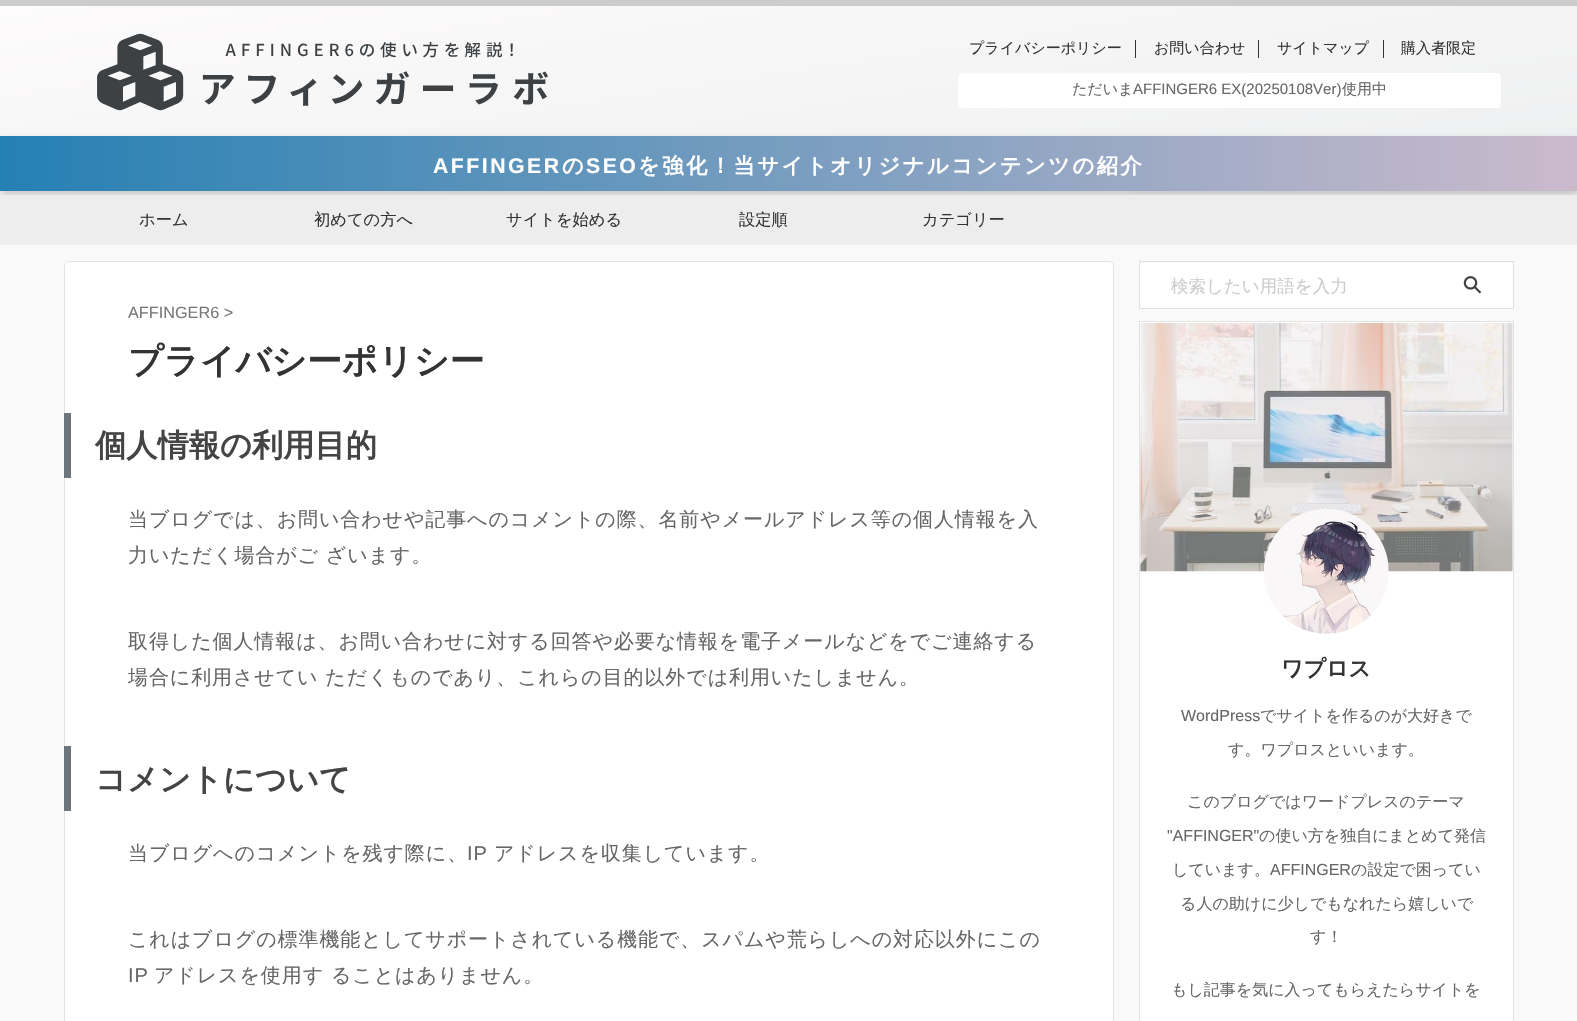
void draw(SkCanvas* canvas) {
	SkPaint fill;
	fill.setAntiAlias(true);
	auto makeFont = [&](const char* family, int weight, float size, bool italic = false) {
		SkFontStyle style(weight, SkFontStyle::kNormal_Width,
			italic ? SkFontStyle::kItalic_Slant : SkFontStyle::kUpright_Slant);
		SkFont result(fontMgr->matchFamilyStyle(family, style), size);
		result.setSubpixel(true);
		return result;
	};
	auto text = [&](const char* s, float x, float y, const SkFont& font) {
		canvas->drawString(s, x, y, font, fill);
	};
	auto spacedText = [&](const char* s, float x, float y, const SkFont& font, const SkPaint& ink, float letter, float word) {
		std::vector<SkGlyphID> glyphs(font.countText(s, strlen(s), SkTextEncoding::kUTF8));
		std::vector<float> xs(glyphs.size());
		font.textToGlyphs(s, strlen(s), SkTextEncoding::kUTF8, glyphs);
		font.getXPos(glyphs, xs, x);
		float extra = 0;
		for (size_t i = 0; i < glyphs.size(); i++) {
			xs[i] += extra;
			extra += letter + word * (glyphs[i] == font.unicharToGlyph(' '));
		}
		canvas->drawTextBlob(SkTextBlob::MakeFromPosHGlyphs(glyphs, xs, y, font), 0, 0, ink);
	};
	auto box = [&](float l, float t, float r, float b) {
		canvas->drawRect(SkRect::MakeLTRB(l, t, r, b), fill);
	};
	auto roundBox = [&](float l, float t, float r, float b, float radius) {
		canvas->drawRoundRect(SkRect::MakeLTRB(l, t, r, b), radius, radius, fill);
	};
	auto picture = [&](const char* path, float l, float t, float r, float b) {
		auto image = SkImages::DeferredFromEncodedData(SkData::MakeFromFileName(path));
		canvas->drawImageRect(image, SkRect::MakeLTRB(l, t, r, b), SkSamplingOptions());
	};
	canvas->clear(0xFFFAF9F9);
	fill.setColor(0xFFCCCCCC);
	box(0, 0, 1577, 6);
	{
		const SkColor colors[] = {0xFFFDFBFB, 0xFFEBEDEE};
		const float stops[] = {0, 1};
		const SkPoint ends[] = {{753, -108}, {824, 359}};
		fill.setShader(SkGradientShader::MakeLinear(ends, colors, stops, 2, SkTileMode::kClamp));
		fill.setAlpha(255);
	}
	box(0, 6, 1577, 245);
	picture("image0.png", 97, 33, 548, 111);
	fill.setShader(nullptr);
	fill.setColor(0xFF333333);
	box(1135, 40, 1136, 58);
	box(1258, 40, 1259, 58);
	box(1383, 40, 1384, 58);
	fill.setColor(0xFFFFFFFF);
	roundBox(958, 73, 1501, 108, 4);
	fill.setColor(0x2E000000);
	fill.setMaskFilter(SkMaskFilter::MakeBlur(kNormal_SkBlurStyle, 4));
	canvas->drawRect(SkRect::MakeLTRB(0, 140, 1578, 195), fill);
	fill.setMaskFilter(nullptr);
	{
		const SkColor colors[] = {0xFF2580B3, 0xFFCBBACC};
		const float stops[] = {0, 1};
		const SkPoint ends[] = {{0, 164}, {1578, 164}};
		fill.setShader(SkGradientShader::MakeLinear(ends, colors, stops, 2, SkTileMode::kClamp));
		fill.setAlpha(255);
	}
	box(0, 136, 1577, 191);
	fill.setShader(nullptr);
	fill.setColor(0xFFEDEDED);
	roundBox(0, 195, 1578, 245, 1);
	fill.setColor(0xFFFFFFFF);
	canvas->drawRoundRect(SkRect::MakeLTRB(64.5f, 261.5f, 1113.5f, 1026.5f), 4.5f, 4.5f, fill);
	fill.setStyle(SkPaint::kStroke_Style);
	fill.setStrokeWidth(1);
	fill.setColor(0xFFE3E3E3);
	canvas->drawRoundRect(SkRect::MakeLTRB(64.5f, 261.5f, 1113.5f, 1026.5f), 4.5f, 4.5f, fill);
	fill.setStyle(SkPaint::kFill_Style);
	fill.setColor(0xFF6B757D);
	box(64, 413, 71, 478);
	box(64, 746, 71, 811);
	fill.setStyle(SkPaint::kStroke_Style);
	fill.setColor(0xFFE0E0E0);
	canvas->drawRect(SkRect::MakeLTRB(1139.5f, 261.5f, 1513.5f, 308.5f), fill);
	fill.setStyle(SkPaint::kFill_Style);
	fill.setColor(0xFFFFFFFF);
	box(1140, 263, 1513, 308);
	picture("image1.png", 1463, 276, 1482, 294);
	canvas->drawRect(SkRect::MakeLTRB(1139.5f, 321.5f, 1513.5f, 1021.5f), fill);
	fill.setStyle(SkPaint::kStroke_Style);
	fill.setColor(0xFFE3E3E3);
	canvas->drawRect(SkRect::MakeLTRB(1139.5f, 321.5f, 1513.5f, 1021.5f), fill);
	picture("image2.png", 1140, 322, 1513, 572);
	picture("image3.png", 1264, 509, 1389, 634);
	auto font1 = makeFont("WenQuanYi Zen Hei", 500, 15);
	fill.setStyle(SkPaint::kFill_Style);
	fill.setColor(0xFF333333);
	text("プライバシーポリシー", 969, 53, font1);
	text("お問い合わせ", 1154, 53, font1);
	text("サイトマップ", 1277, 53, font1);
	text("購入者限定", 1401, 53, font1);
	fill.setColor(0xFF666666);
	text("ただいま", 1072, 94, font1);
	auto font2 = makeFont("Liberation Sans", 400, 15);
	text("AFFINGER6 EX(20250108Ver)", 1133, 94, font2);
	text("使用中", 1342, 94, font1);
	auto font3 = makeFont("Liberation Sans", 700, 21.25f);
	fill.setColor(0xFFFFFFFF);
	spacedText("AFFINGER", 433, 173, font3, fill, 2.5f, 0);
	auto font4 = makeFont("WenQuanYi Zen Hei", 700, 21.25f);
	spacedText("の", 562, 173, font4, fill, 2.5f, 0);
	spacedText("SEO", 586, 173, font3, fill, 2.5f, 0);
	spacedText("を強化！当サイトオリジナルコンテンツの紹介", 638, 173, font4, fill, 2.5f, 0);
	auto font5 = makeFont("WenQuanYi Zen Hei", 500, 16.25f);
	fill.setColor(0xFF333333);
	text("ホーム", 139, 225, font5);
	text("初めての方へ", 314, 225, font5);
	text("サイトを始める", 506, 225, font5);
	text("設定順", 739, 225, font5);
	text("カテゴリー", 922, 225, font5);
	auto font6 = makeFont("Liberation Sans", 400, 16.25f);
	fill.setColor(0xFF777777);
	text("AFFINGER6 >", 128, 318, font6);
	auto font7 = makeFont("WenQuanYi Zen Hei", 700, 35);
	fill.setColor(0xFF333333);
	text("プライバシーポリシー", 128, 373, font7);
	auto font8 = makeFont("WenQuanYi Zen Hei", 700, 31.25f);
	fill.setColor(0xFF444444);
	text("個人情報の利用目的", 95, 456, font8);
	auto font9 = makeFont("WenQuanYi Zen Hei", 500, 20);
	fill.setColor(0xFF666666);
	spacedText("当ブログでは、お問い合わせや記事へのコメントの際、名前やメールアドレス等の個人情報を入", 128, 526, font9, fill, 0.9f, 0);
	spacedText("力いただく場合がご ざいます。", 128, 562, font9, fill, 0.9f, 0);
	spacedText("取得した個人情報は、お問い合わせに対する回答や必要な情報を電子メールなどをでご連絡する", 128, 648, font9, fill, 0.9f, 0);
	spacedText("場合に利用させてい ただくものであり、これらの目的以外では利用いたしません。", 128, 684, font9, fill, 0.9f, 0);
	fill.setColor(0xFF444444);
	text("コメントについて", 95, 790, font8);
	fill.setColor(0xFF666666);
	spacedText("当ブログへのコメントを残す際に、", 128, 860, font9, fill, 0.9f, 0);
	auto font10 = makeFont("Liberation Sans", 400, 20);
	spacedText("IP", 467, 860, font10, fill, 0.9f, 0);
	spacedText("アドレスを収集しています。", 494, 860, font9, fill, 0.9f, 0);
	spacedText("これはブログの標準機能としてサポートされている機能で、スパムや荒らしへの対応以外にこの", 128, 946, font9, fill, 0.9f, 0);
	spacedText("IP", 128, 982, font10, fill, 0.9f, 0);
	spacedText("アドレスを使用す ることはありません。", 154, 982, font9, fill, 0.9f, 0);
	auto font11 = makeFont("WenQuanYi Zen Hei", 500, 17.5f);
	fill.setColor(0xFFCCCCCC);
	text("検索したい用語を入力", 1171, 292, font11);
	auto font12 = makeFont("WenQuanYi Zen Hei", 700, 22);
	fill.setColor(0xFF333333);
	text("ワプロス", 1281, 676, font12);
	auto font13 = makeFont("Liberation Sans", 400, 16);
	fill.setColor(0xFF666666);
	text("WordPress", 1181, 721, font13);
	auto font14 = makeFont("WenQuanYi Zen Hei", 500, 16);
	text("でサイトを作るのが大好きで", 1260, 721, font14);
	text("す。ワプロスといいます。", 1228, 755, font14);
	text("このブログではワードプレスのテーマ", 1187, 807, font14);
	text("\"AFFINGER\"", 1167, 841, font13);
	text("の使い方を独自にまとめて発信", 1259, 841, font14);
	text("しています。", 1172, 875, font14);
	text("AFFINGER", 1270, 875, font13);
	text("の設定で困ってい", 1351, 875, font14);
	text("る人の助けに少しでもなれたら嬉しいで", 1180, 909, font14);
	text("す！", 1310, 942, font14);
	text("もし記事を気に入ってもらえたらサイトを", 1171, 995, font14);
}
